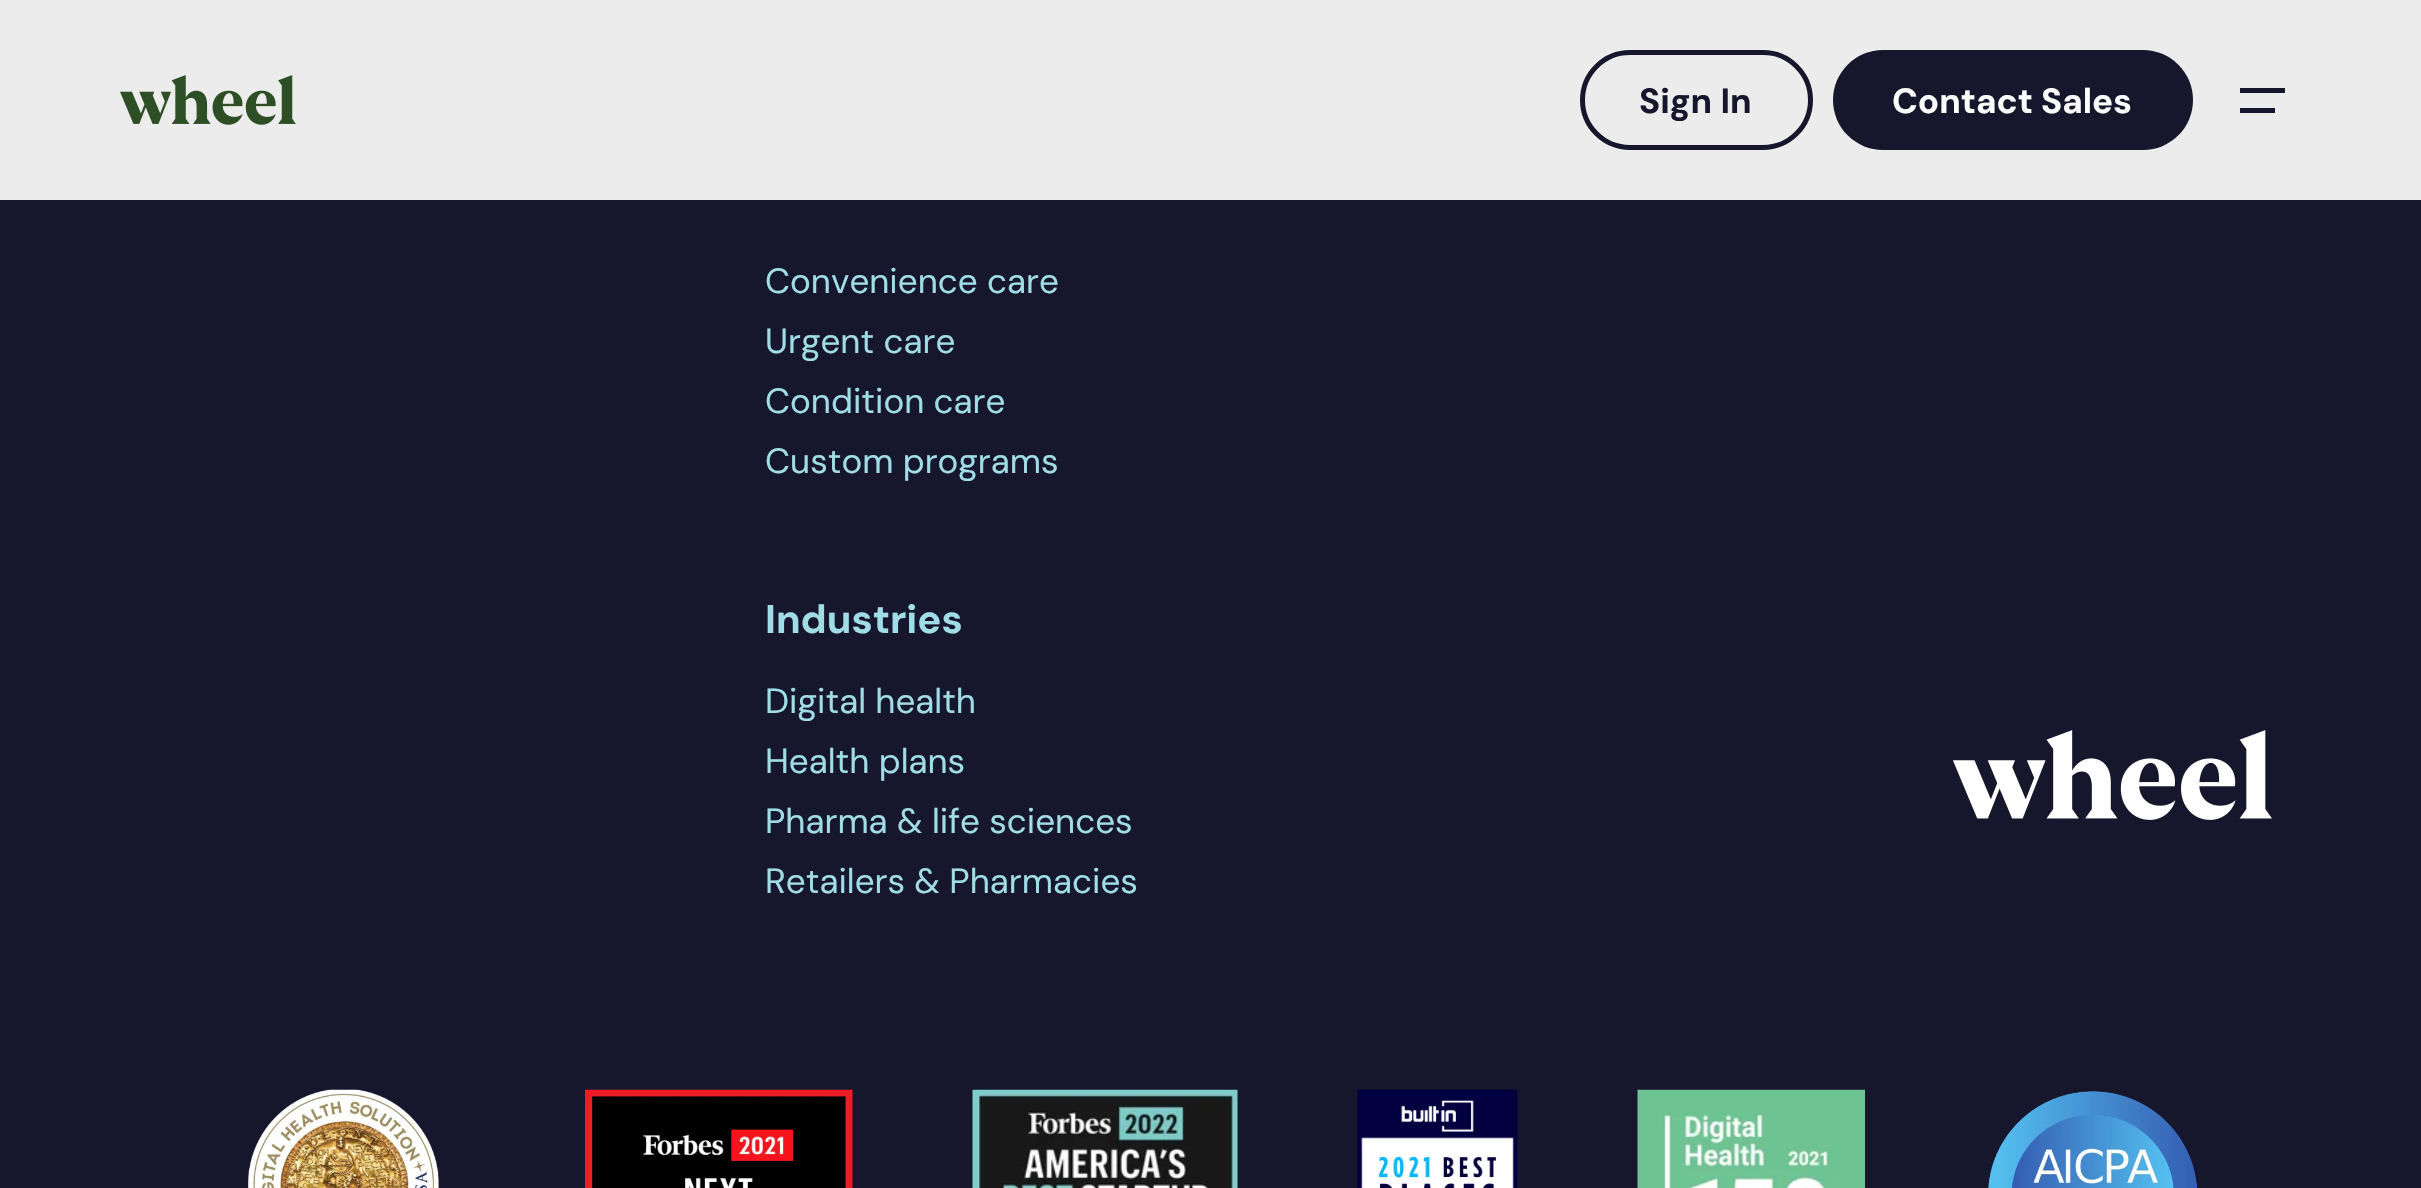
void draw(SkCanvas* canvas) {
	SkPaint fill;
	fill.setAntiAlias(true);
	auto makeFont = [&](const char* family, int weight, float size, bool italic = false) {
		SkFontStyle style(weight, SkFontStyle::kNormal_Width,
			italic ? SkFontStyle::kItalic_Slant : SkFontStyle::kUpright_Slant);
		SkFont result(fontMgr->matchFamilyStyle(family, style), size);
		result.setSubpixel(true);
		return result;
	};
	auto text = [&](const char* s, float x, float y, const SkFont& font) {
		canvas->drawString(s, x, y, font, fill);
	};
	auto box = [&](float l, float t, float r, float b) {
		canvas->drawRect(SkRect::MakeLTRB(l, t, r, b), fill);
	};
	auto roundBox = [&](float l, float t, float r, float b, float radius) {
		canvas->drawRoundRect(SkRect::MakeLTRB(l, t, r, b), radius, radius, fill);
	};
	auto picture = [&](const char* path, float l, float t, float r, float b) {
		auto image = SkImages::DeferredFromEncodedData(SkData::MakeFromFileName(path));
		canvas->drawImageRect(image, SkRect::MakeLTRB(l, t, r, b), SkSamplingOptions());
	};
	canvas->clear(0xFF16162C);
	fill.setColor(0xFFECECEC);
	box(0, 0, 2421, 200);
	picture("image0.png", 120, 75, 296, 125);
	fill.setStyle(SkPaint::kStroke_Style);
	fill.setStrokeWidth(5);
	fill.setColor(0xFF16162C);
	canvas->drawRoundRect(SkRect::MakeLTRB(1582.5f, 52.5f, 1810.5f, 147.5f), 47.5f, 47.5f, fill);
	fill.setStyle(SkPaint::kFill_Style);
	roundBox(1833, 50, 2193, 150, 50);
	box(2240, 88, 2285, 93);
	box(2240, 108, 2275, 113);
	picture("image1.png", 1953, 730, 2272, 820);
	picture("image2.png", 248, 1089, 439, 1188);
	picture("image3.png", 585, 1089, 853, 1188);
	picture("image4.png", 972, 1089, 1238, 1188);
	picture("image5.png", 1357, 1089, 1518, 1188);
	picture("image6.png", 1637, 1089, 1865, 1188);
	picture("image7.png", 1988, 1091, 2198, 1188);
	auto font1 = makeFont("DM Sans", 700, 35);
	text("Sign In", 1639, 113, font1);
	fill.setColor(0xFFFFFFFF);
	text("Contact Sales", 1892, 113, font1);
	auto font2 = makeFont("DM Sans", 400, 35);
	fill.setColor(0xFFA0DCE5);
	text("Convenience care", 765, 293, font2);
	text("Urgent care", 765, 353, font2);
	text("Condition care", 765, 413, font2);
	text("Custom programs", 765, 473, font2);
	auto font3 = makeFont("DM Sans", 700, 40);
	text("Industries", 765, 633, font3);
	text("Digital health", 765, 713, font2);
	text("Health plans", 765, 773, font2);
	text("Pharma & life sciences", 765, 833, font2);
	text("Retailers & Pharmacies", 765, 893, font2);
}
